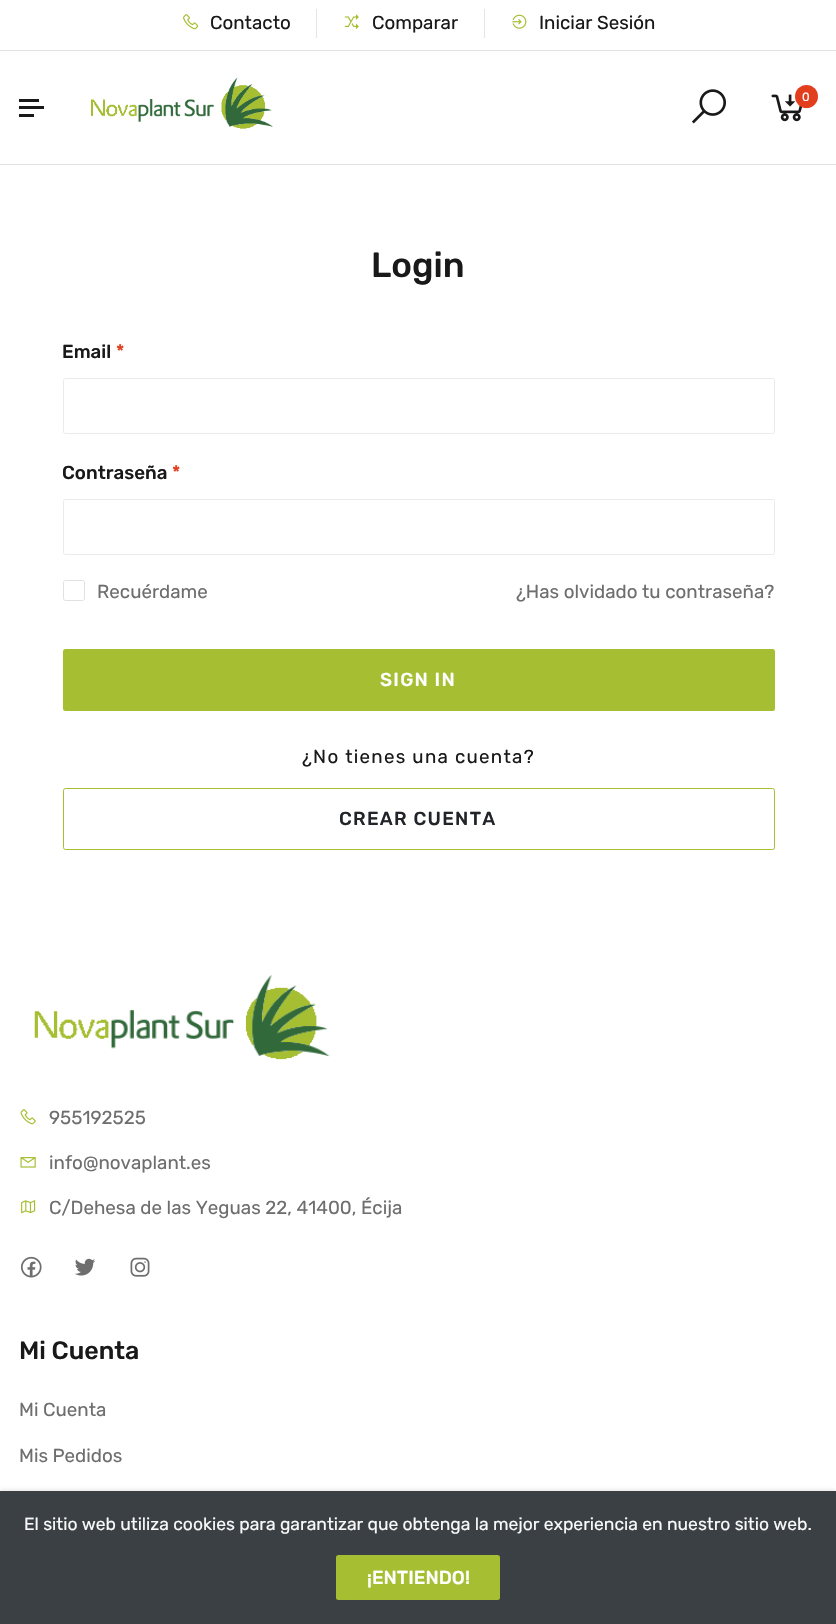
void draw(SkCanvas* canvas) {
	SkPaint fill;
	fill.setAntiAlias(true);
	auto makeFont = [&](const char* family, int weight, float size, bool italic = false) {
		SkFontStyle style(weight, SkFontStyle::kNormal_Width,
			italic ? SkFontStyle::kItalic_Slant : SkFontStyle::kUpright_Slant);
		SkFont result(fontMgr->matchFamilyStyle(family, style), size);
		result.setSubpixel(true);
		return result;
	};
	auto text = [&](const char* s, float x, float y, const SkFont& font) {
		canvas->drawString(s, x, y, font, fill);
	};
	auto spacedText = [&](const char* s, float x, float y, const SkFont& font, const SkPaint& ink, float letter, float word) {
		std::vector<SkGlyphID> glyphs(font.countText(s, strlen(s), SkTextEncoding::kUTF8));
		std::vector<float> xs(glyphs.size());
		font.textToGlyphs(s, strlen(s), SkTextEncoding::kUTF8, glyphs);
		font.getXPos(glyphs, xs, x);
		float extra = 0;
		for (size_t i = 0; i < glyphs.size(); i++) {
			xs[i] += extra;
			extra += letter + word * (glyphs[i] == font.unicharToGlyph(' '));
		}
		canvas->drawTextBlob(SkTextBlob::MakeFromPosHGlyphs(glyphs, xs, y, font), 0, 0, ink);
	};
	auto box = [&](float l, float t, float r, float b) {
		canvas->drawRect(SkRect::MakeLTRB(l, t, r, b), fill);
	};
	auto roundBox = [&](float l, float t, float r, float b, float radius) {
		canvas->drawRoundRect(SkRect::MakeLTRB(l, t, r, b), radius, radius, fill);
	};
	auto picture = [&](const char* path, float l, float t, float r, float b) {
		auto image = SkImages::DeferredFromEncodedData(SkData::MakeFromFileName(path));
		canvas->drawImageRect(image, SkRect::MakeLTRB(l, t, r, b), SkSamplingOptions());
	};
	canvas->clear(0xFFFFFFFF);
	fill.setColor(0xFFE1E1E1);
	box(0, 50, 836, 51);
	fill.setColor(0xFFE5E5E5);
	box(316, 9, 317, 38);
	picture("image0.png", 183, 14, 199, 30);
	box(484, 9, 485, 38);
	picture("image1.png", 344, 14, 359, 30);
	picture("image2.png", 512, 14, 527, 29);
	fill.setColor(0xFFE1E1E1);
	box(0, 164, 836, 165);
	fill.setColor(0xFF191919);
	box(19, 99, 39, 102);
	box(19, 106, 44, 109);
	box(19, 114, 34, 117);
	picture("image3.png", 91, 77, 273, 129);
	picture("image4.png", 692, 89, 726, 124);
	picture("image5.png", 771, 94, 802, 122);
	fill.setColor(0xFFE23E1D);
	canvas->drawCircle(806.5f, 96.5f, 11.5f, fill);
	fill.setStyle(SkPaint::kStroke_Style);
	fill.setStrokeWidth(1);
	fill.setColor(0xFFEBEBEB);
	canvas->drawRoundRect(SkRect::MakeLTRB(63.5f, 378.5f, 774.5f, 433.5f), 2, 2, fill);
	canvas->drawRoundRect(SkRect::MakeLTRB(63.5f, 499.5f, 774.5f, 554.5f), 2, 2, fill);
	fill.setColor(0xFFE1E1E1);
	canvas->drawRoundRect(SkRect::MakeLTRB(63.5f, 580.5f, 84.5f, 600.5f), 2, 2, fill);
	fill.setStyle(SkPaint::kFill_Style);
	fill.setColor(0xFFA5BE32);
	roundBox(63, 649, 775, 711, 2.5f);
	fill.setStyle(SkPaint::kStroke_Style);
	canvas->drawRoundRect(SkRect::MakeLTRB(63.5f, 788.5f, 774.5f, 849.5f), 2, 2, fill);
	picture("image6.png", 34, 975, 330, 1060);
	picture("image7.png", 20, 1109, 36, 1125);
	picture("image8.png", 20, 1157, 36, 1168);
	picture("image9.png", 21, 1200, 36, 1214);
	picture("image10.png", 20, 1256, 42, 1278);
	picture("image11.png", 75, 1258, 96, 1276);
	picture("image12.png", 130, 1257, 150, 1277);
	fill.setStyle(SkPaint::kFill_Style);
	fill.setColor(0x1A000000);
	fill.setMaskFilter(SkMaskFilter::MakeBlur(kNormal_SkBlurStyle, 2));
	canvas->drawRect(SkRect::MakeLTRB(0, 1490, 836, 1624), fill);
	fill.setMaskFilter(nullptr);
	fill.setColor(0xFF3B4045);
	box(0, 1491, 836, 1624);
	fill.setColor(0xFFA5BE32);
	roundBox(336, 1555, 500, 1600, 2.5f);
	auto font1 = makeFont("Rubik", 400, 18.75f);
	fill.setColor(0xFF191919);
	text("Contacto", 210, 29, font1);
	text("Comparar", 372, 29, font1);
	text("Iniciar Sesión", 539, 29, font1);
	auto font2 = makeFont("Rubik", 400, 12);
	fill.setColor(0xFFFFFFFF);
	text("0", 802, 101, font2);
	auto font3 = makeFont("Rubik", 500, 35);
	fill.setColor(0xFF191919);
	text("Login", 371, 277, font3);
	auto font4 = makeFont("Rubik", 500, 18.75f);
	text("Email", 62, 358, font4);
	fill.setColor(0xFFE23E1D);
	text("*", 116, 358, font4);
	fill.setColor(0xFF191919);
	text("Contraseña", 62, 479, font4);
	fill.setColor(0xFFE23E1D);
	text("*", 172, 479, font4);
	fill.setColor(0xFF6E6E6E);
	text("Recuérdame", 97, 598, font1);
	text("¿Has olvidado tu contraseña?", 516, 598, font1);
	fill.setColor(0xFFFFFFFF);
	spacedText("SIGN IN", 380, 686, font4, fill, 1.25f, 0);
	fill.setColor(0xFF191919);
	spacedText("¿No tienes una cuenta?", 302, 763, font1, fill, 1.25f, 0);
	fill.setColor(0xFF212529);
	spacedText("CREAR CUENTA", 339, 825, font4, fill, 1.25f, 0);
	fill.setColor(0xFF6E6E6E);
	text("955192525", 49, 1124, font1);
	text("info@novaplant.es", 49, 1169, font1);
	text("C/Dehesa de las Yeguas 22, 41400, Écija", 49, 1214, font1);
	auto font5 = makeFont("Rubik", 500, 25);
	fill.setColor(0xFF191919);
	text("Mi Cuenta", 19, 1359, font5);
	fill.setColor(0xFF6E6E6E);
	text("Mi Cuenta", 19, 1416, font1);
	text("Mis Pedidos", 19, 1462, font1);
	auto font6 = makeFont("Rubik", 400, 17.5f);
	fill.setColor(0xFFF9F9F9);
	text("El sitio web utiliza cookies para garantizar que obtenga la mejor experiencia en nuestro sitio web.", 24, 1530, font6);
	fill.setColor(0xFFFFFFFF);
	text("¡ENTIENDO!", 367, 1584, font4);
}
